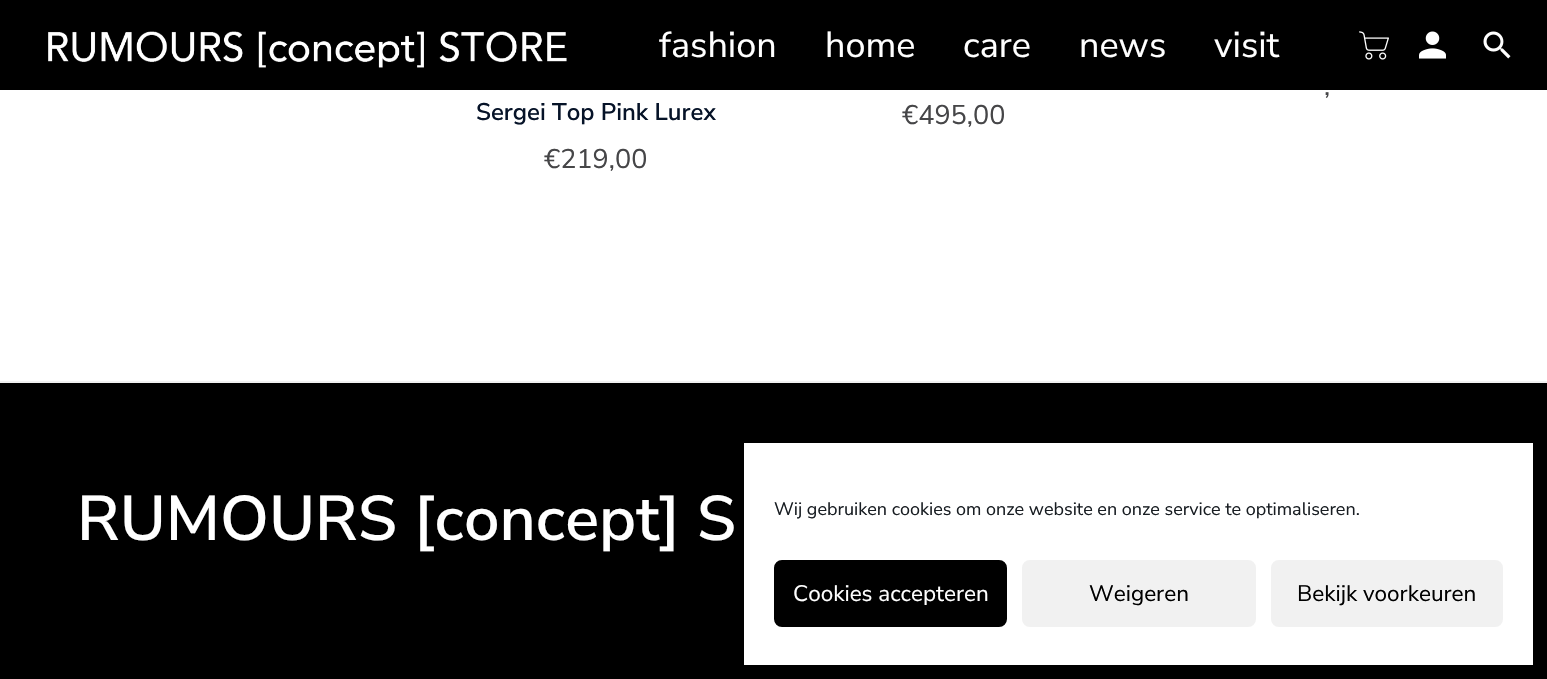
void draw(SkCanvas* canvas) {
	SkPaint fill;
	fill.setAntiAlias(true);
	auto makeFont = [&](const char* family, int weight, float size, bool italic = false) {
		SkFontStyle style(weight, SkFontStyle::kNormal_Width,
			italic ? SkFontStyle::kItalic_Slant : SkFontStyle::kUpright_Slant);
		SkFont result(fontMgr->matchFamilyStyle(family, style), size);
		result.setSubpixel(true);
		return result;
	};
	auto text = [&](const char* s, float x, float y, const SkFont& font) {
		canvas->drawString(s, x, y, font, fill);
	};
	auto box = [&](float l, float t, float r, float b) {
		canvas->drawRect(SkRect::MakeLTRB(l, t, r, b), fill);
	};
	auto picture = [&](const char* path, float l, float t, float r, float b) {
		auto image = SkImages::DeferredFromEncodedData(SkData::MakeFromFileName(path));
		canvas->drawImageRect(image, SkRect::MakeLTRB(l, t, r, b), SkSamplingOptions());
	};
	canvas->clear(0xFFFFFFFF);
	fill.setColor(0xFF000000);
	box(0, 0, 1547, 90);
	picture("image0.png", 48, 31, 567, 68);
	picture("image1.png", 1359, 31, 1389, 60);
	picture("image2.png", 1419, 31, 1446, 59);
	picture("image3.png", 1483, 31, 1511, 59);
	box(0, 383, 1547, 679);
	fill.setColor(0xFFF1F1F1);
	box(0, 381, 1547, 383);
	fill.setColor(0x30000000);
	fill.setMaskFilter(SkMaskFilter::MakeBlur(kNormal_SkBlurStyle, 15));
	canvas->drawRect(SkRect::MakeLTRB(744, 458, 1533, 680), fill);
	fill.setMaskFilter(nullptr);
	fill.setColor(0xFFFFFFFF);
	box(744, 443, 1533, 665);
	fill.setColor(0xFF000000);
	canvas->drawRoundRect(SkRect::MakeLTRB(775, 561, 1006, 626), 7, 7, fill);
	fill.setStyle(SkPaint::kStroke_Style);
	fill.setStrokeWidth(2);
	canvas->drawRoundRect(SkRect::MakeLTRB(775, 561, 1006, 626), 7, 7, fill);
	fill.setStyle(SkPaint::kFill_Style);
	fill.setColor(0xFFF1F1F1);
	canvas->drawRoundRect(SkRect::MakeLTRB(1023, 561, 1255, 626), 7, 7, fill);
	fill.setStyle(SkPaint::kStroke_Style);
	canvas->drawRoundRect(SkRect::MakeLTRB(1023, 561, 1255, 626), 7, 7, fill);
	fill.setStyle(SkPaint::kFill_Style);
	canvas->drawRoundRect(SkRect::MakeLTRB(1272, 561, 1502, 626), 7, 7, fill);
	fill.setStyle(SkPaint::kStroke_Style);
	canvas->drawRoundRect(SkRect::MakeLTRB(1272, 561, 1502, 626), 7, 7, fill);
	auto font1 = makeFont("Nunito Sans", 400, 36);
	fill.setStyle(SkPaint::kFill_Style);
	fill.setColor(0xFFFFFFFF);
	text("fashion", 659, 57, font1);
	text("home", 825, 57, font1);
	text("care", 963, 57, font1);
	text("news", 1079, 57, font1);
	text("visit", 1214, 57, font1);
	auto font2 = makeFont("Nunito Sans", 400, 27);
	fill.setColor(0xFF464648);
	text(",", 1324, 95, font2);
	auto font3 = makeFont("Nunito Sans", 600, 24);
	fill.setColor(0xFF061328);
	text("Sergei Top Pink Lurex", 476, 120, font3);
	fill.setColor(0xFF464648);
	text("€219,00", 544, 168, font2);
	text("€495,00", 902, 124, font2);
	auto font4 = makeFont("Nunito Sans", 600, 63);
	fill.setColor(0xFFFFFFFF);
	text("RUMOURS [concept] S", 77, 540, font4);
	auto font5 = makeFont("Nunito Sans", 400, 18);
	fill.setColor(0xFF191E23);
	text("Wij gebruiken cookies om onze website en onze service te optimaliseren.", 774, 515, font5);
	auto font6 = makeFont("Nunito Sans", 400, 22.5f);
	fill.setColor(0xFFFFFFFF);
	text("Cookies accepteren", 793, 601, font6);
	fill.setColor(0xFF000000);
	text("Weigeren", 1089, 601, font6);
	text("Bekijk voorkeuren", 1297, 601, font6);
}
